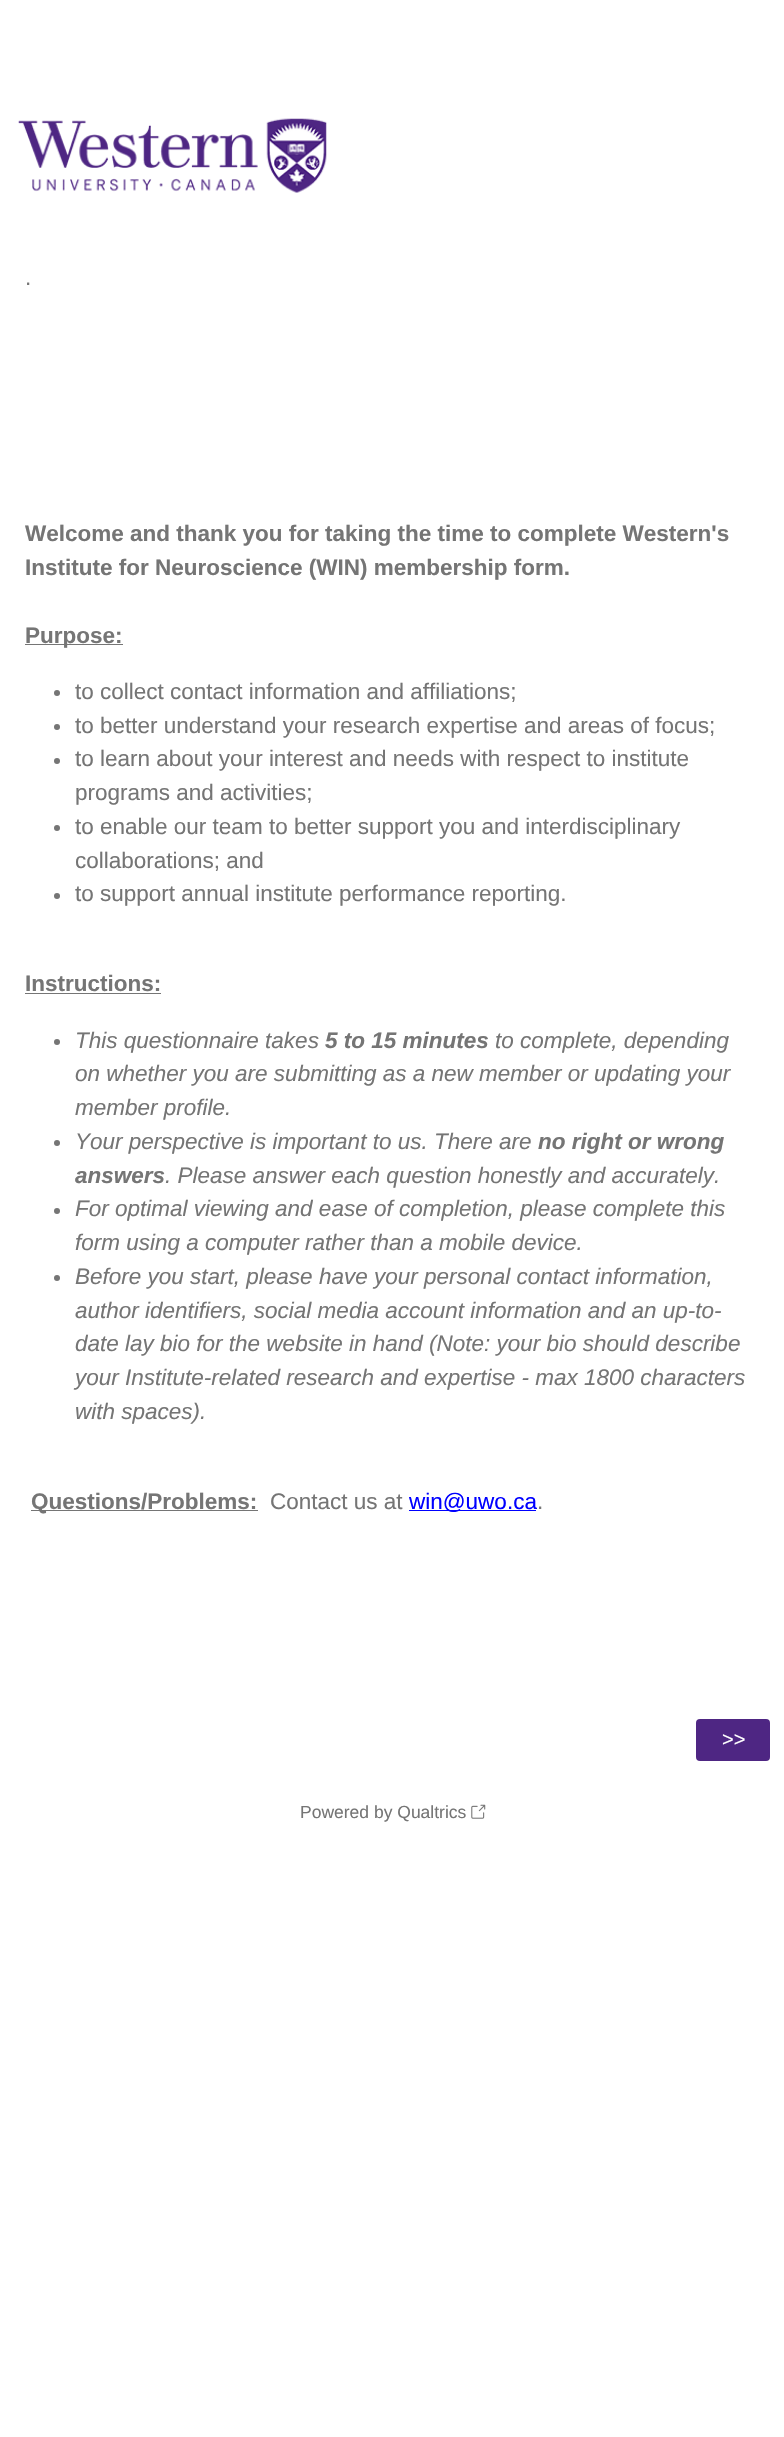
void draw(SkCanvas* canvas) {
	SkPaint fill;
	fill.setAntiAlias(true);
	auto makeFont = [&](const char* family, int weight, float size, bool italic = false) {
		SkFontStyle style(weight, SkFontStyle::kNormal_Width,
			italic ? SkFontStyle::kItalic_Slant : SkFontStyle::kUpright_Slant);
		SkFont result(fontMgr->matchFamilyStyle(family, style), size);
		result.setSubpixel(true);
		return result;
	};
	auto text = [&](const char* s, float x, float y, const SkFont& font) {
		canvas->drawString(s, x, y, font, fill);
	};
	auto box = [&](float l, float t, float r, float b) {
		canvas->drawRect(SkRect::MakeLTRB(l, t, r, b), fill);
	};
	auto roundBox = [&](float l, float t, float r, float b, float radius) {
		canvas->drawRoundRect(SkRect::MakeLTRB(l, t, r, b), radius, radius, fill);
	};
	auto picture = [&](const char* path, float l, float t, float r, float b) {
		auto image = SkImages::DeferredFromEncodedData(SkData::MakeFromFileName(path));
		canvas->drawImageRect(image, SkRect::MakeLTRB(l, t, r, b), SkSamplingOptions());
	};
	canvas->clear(0xFFFFFFFF);
	picture("image0.png", 18, 118, 327, 193);
	fill.setColor(0xFF757575);
	box(25, 644, 123, 645);
	canvas->drawCircle(57, 693, 3, fill);
	canvas->drawCircle(57, 727, 3, fill);
	canvas->drawCircle(57, 761, 3, fill);
	canvas->drawCircle(57, 828, 3, fill);
	canvas->drawCircle(57, 896, 3, fill);
	box(25, 993, 161, 994);
	canvas->drawCircle(57, 1042, 3, fill);
	canvas->drawCircle(57, 1143, 3, fill);
	canvas->drawCircle(57, 1211, 3, fill);
	canvas->drawCircle(57, 1278, 3, fill);
	box(31, 1510, 258, 1511);
	fill.setColor(0xFF0000FF);
	box(409, 1510, 536, 1511);
	fill.setColor(0xFF4E2683);
	roundBox(696, 1719, 770, 1761, 4);
	picture("image1.png", 471, 1804, 486, 1819);
	auto font1 = makeFont("Liberation Sans", 400, 22.5f);
	fill.setColor(0xFF757575);
	text(".", 25, 285, font1);
	auto font2 = makeFont("Liberation Sans", 700, 22.5f);
	text("Welcome and thank you for taking the time to complete Western's", 25, 541, font2);
	text("Institute for Neuroscience (WIN) membership form.", 25, 575, font2);
	text("Purpose:", 25, 643, font2);
	text("to collect contact information and affiliations;", 75, 699, font1);
	text("to better understand your research expertise and areas of focus;", 75, 733, font1);
	text("to learn about your interest and needs with respect to institute", 75, 766, font1);
	text("programs and activities;", 75, 800, font1);
	text("to enable our team to better support you and interdisciplinary", 75, 834, font1);
	text("collaborations; and", 75, 868, font1);
	text("to support annual institute performance reporting.", 75, 901, font1);
	text("Instructions:", 25, 991, font2);
	auto font3 = makeFont("Liberation Sans", 400, 22.5f, true);
	text("This questionnaire takes", 75, 1048, font3);
	auto font4 = makeFont("Liberation Sans", 700, 22.5f, true);
	text("5 to 15 minutes", 325, 1048, font4);
	text("to complete, depending", 495, 1048, font3);
	text("on whether you are submitting as a new member or updating your", 75, 1081, font3);
	text("member profile.", 75, 1115, font3);
	text("Your perspective is important to us. There are", 75, 1149, font3);
	text("no right or wrong", 538, 1149, font4);
	text("answers", 75, 1183, font4);
	text(". Please answer each question honestly and accurately.", 165, 1183, font3);
	text("For optimal viewing and ease of completion, please complete this", 75, 1216, font3);
	text("form using a computer rather than a mobile device.", 75, 1250, font3);
	text("Before you start, please have your personal contact information,", 75, 1284, font3);
	text("author identifiers, social media account information and an up-to-", 75, 1318, font3);
	text("date lay bio for the website in hand (Note: your bio should describe", 75, 1351, font3);
	text("your Institute-related research and expertise - max 1800 characters", 75, 1385, font3);
	text("with spaces).", 75, 1419, font3);
	text("Questions/Problems:", 31, 1509, font2);
	text("Contact us at", 270, 1509, font1);
	fill.setColor(0xFF0000FF);
	text("win@uwo.ca", 409, 1509, font1);
	fill.setColor(0xFF757575);
	text(".", 537, 1509, font1);
	auto font5 = makeFont("Liberation Sans", 400, 20);
	fill.setColor(0xFFFFFFFF);
	text(">>", 722, 1746, font5);
	auto font6 = makeFont("Liberation Sans", 400, 17.5f);
	fill.setColor(0xFF757575);
	text("Powered by Qualtrics", 300, 1818, font6);
}
